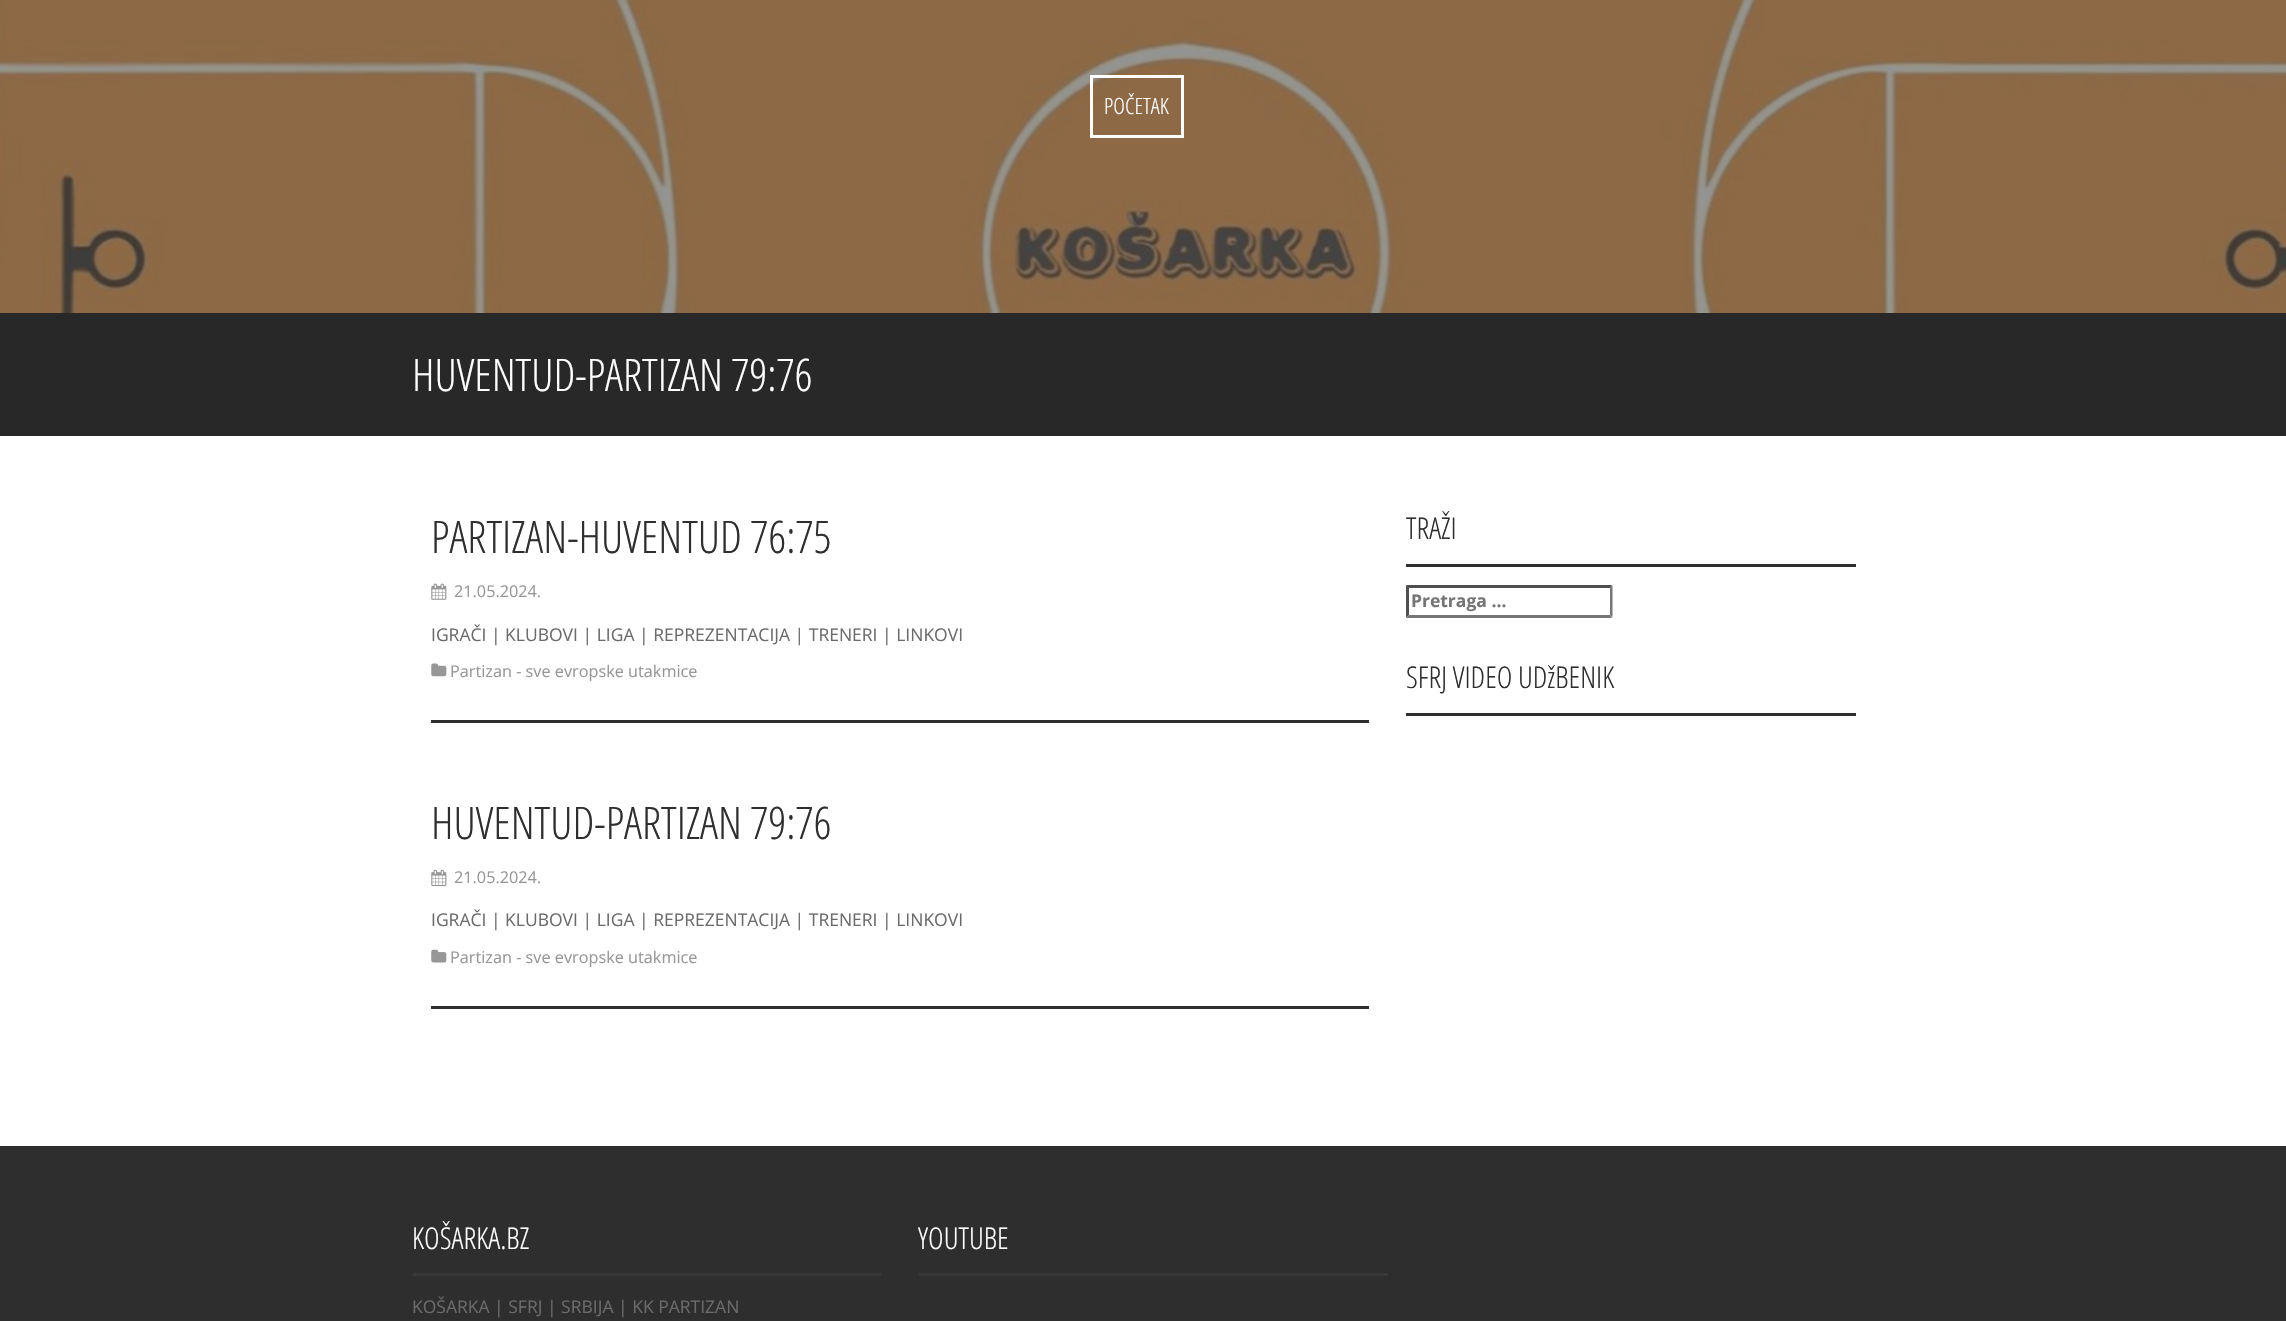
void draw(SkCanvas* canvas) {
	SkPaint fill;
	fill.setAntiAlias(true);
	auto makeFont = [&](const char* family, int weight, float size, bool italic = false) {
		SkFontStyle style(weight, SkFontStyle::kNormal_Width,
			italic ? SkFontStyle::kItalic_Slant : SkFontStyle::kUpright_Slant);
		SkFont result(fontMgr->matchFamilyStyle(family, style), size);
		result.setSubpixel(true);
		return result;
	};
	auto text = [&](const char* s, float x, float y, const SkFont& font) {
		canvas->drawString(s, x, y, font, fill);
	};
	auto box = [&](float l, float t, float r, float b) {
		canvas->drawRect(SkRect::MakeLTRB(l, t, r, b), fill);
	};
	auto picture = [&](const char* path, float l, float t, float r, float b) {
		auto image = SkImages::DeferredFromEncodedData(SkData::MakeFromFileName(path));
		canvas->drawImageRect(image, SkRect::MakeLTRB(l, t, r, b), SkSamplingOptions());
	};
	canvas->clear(0xFFFFFFFF);
	fill.setColor(0xFF4D4D4D);
	box(0, 0, 2286, 313);
	picture("image0.png", 0, 0, 2286, 313);
	fill.setStyle(SkPaint::kStroke_Style);
	fill.setStrokeWidth(3);
	fill.setColor(0xFFFFFFFF);
	canvas->drawRect(SkRect::MakeLTRB(1091.5f, 76.5f, 1182.5f, 136.5f), fill);
	fill.setStyle(SkPaint::kFill_Style);
	fill.setColor(0xFF282828);
	box(0, 313, 2286, 436);
	fill.setColor(0xFF2E2E2E);
	box(431, 720, 1369, 723);
	picture("image1.png", 431, 583, 447, 600);
	picture("image2.png", 431, 663, 447, 677);
	box(431, 1006, 1369, 1009);
	picture("image3.png", 431, 869, 447, 887);
	picture("image4.png", 431, 949, 447, 963);
	box(1406, 564, 1856, 567);
	fill.setColor(0xFF4F4F4F);
	canvas->drawPath(SkPathBuilder().moveTo(1406, 585).lineTo(1612, 585).lineTo(1610, 588).lineTo(1409, 588).close().detach(), fill);
	fill.setColor(0xFF767676);
	canvas->drawPath(SkPathBuilder().moveTo(1612.5f, 585).lineTo(1612.5f, 617.5f).lineTo(1610, 615).lineTo(1610, 587.5f).close().detach(), fill);
	canvas->drawPath(SkPathBuilder().moveTo(1612, 618).lineTo(1406, 618).lineTo(1409, 615).lineTo(1610, 615).close().detach(), fill);
	fill.setColor(0xFF4F4F4F);
	canvas->drawPath(SkPathBuilder().moveTo(1406, 617.5f).lineTo(1406, 585).lineTo(1409, 587.5f).lineTo(1409, 615).close().detach(), fill);
	fill.setColor(0xFF2E2E2E);
	box(1406, 713, 1856, 716);
	box(0, 1146, 2286, 1321);
	fill.setColor(0xFF383838);
	box(413, 1273, 881, 1276);
	box(919, 1273, 1388, 1276);
	auto font1 = makeFont("Open Sans Condensed", 300, 22.5f);
	fill.setColor(0xFFFFFFFF);
	text("POČETAK", 1104, 114, font1);
	auto font2 = makeFont("Open Sans Condensed", 300, 45);
	text("HUVENTUD-PARTIZAN 79:76", 412, 391, font2);
	fill.setColor(0xFF2E2E2E);
	text("PARTIZAN-HUVENTUD 76:75", 431, 553, font2);
	auto font3 = makeFont("Open Sans", 400, 16.25f);
	fill.setColor(0xFF979797);
	text("21.05.2024.", 454, 597, font3);
	auto font4 = makeFont("Open Sans", 400, 17.5f);
	fill.setColor(0xFF6B6B6B);
	text("IGRAČI | KLUBOVI | LIGA | REPREZENTACIJA | TRENERI | LINKOVI", 431, 641, font4);
	fill.setColor(0xFF979797);
	text("Partizan - sve evropske utakmice", 450, 677, font3);
	fill.setColor(0xFF2E2E2E);
	text("HUVENTUD-PARTIZAN 79:76", 431, 839, font2);
	fill.setColor(0xFF979797);
	text("21.05.2024.", 454, 883, font3);
	fill.setColor(0xFF6B6B6B);
	text("IGRAČI | KLUBOVI | LIGA | REPREZENTACIJA | TRENERI | LINKOVI", 431, 926, font4);
	fill.setColor(0xFF979797);
	text("Partizan - sve evropske utakmice", 450, 963, font3);
	auto font5 = makeFont("Open Sans Condensed", 300, 30);
	fill.setColor(0xFF2E2E2E);
	text("TRAŽI", 1406, 539, font5);
	auto font6 = makeFont("Open Sans", 700, 17.5f);
	fill.setColor(0xFF757575);
	text("Pretraga …", 1411, 607, font6);
	fill.setColor(0xFF2E2E2E);
	text("SFRJ VIDEO UDžBENIK", 1406, 688, font5);
	fill.setColor(0xFFFFFFFF);
	text("KOŠARKA.BZ", 412, 1249, font5);
	fill.setColor(0xFF6B6B6B);
	text("KOŠARKA | SFRJ | SRBIJA | KK PARTIZAN", 412, 1313, font4);
	fill.setColor(0xFFFFFFFF);
	text("YOUTUBE", 918, 1249, font5);
}
